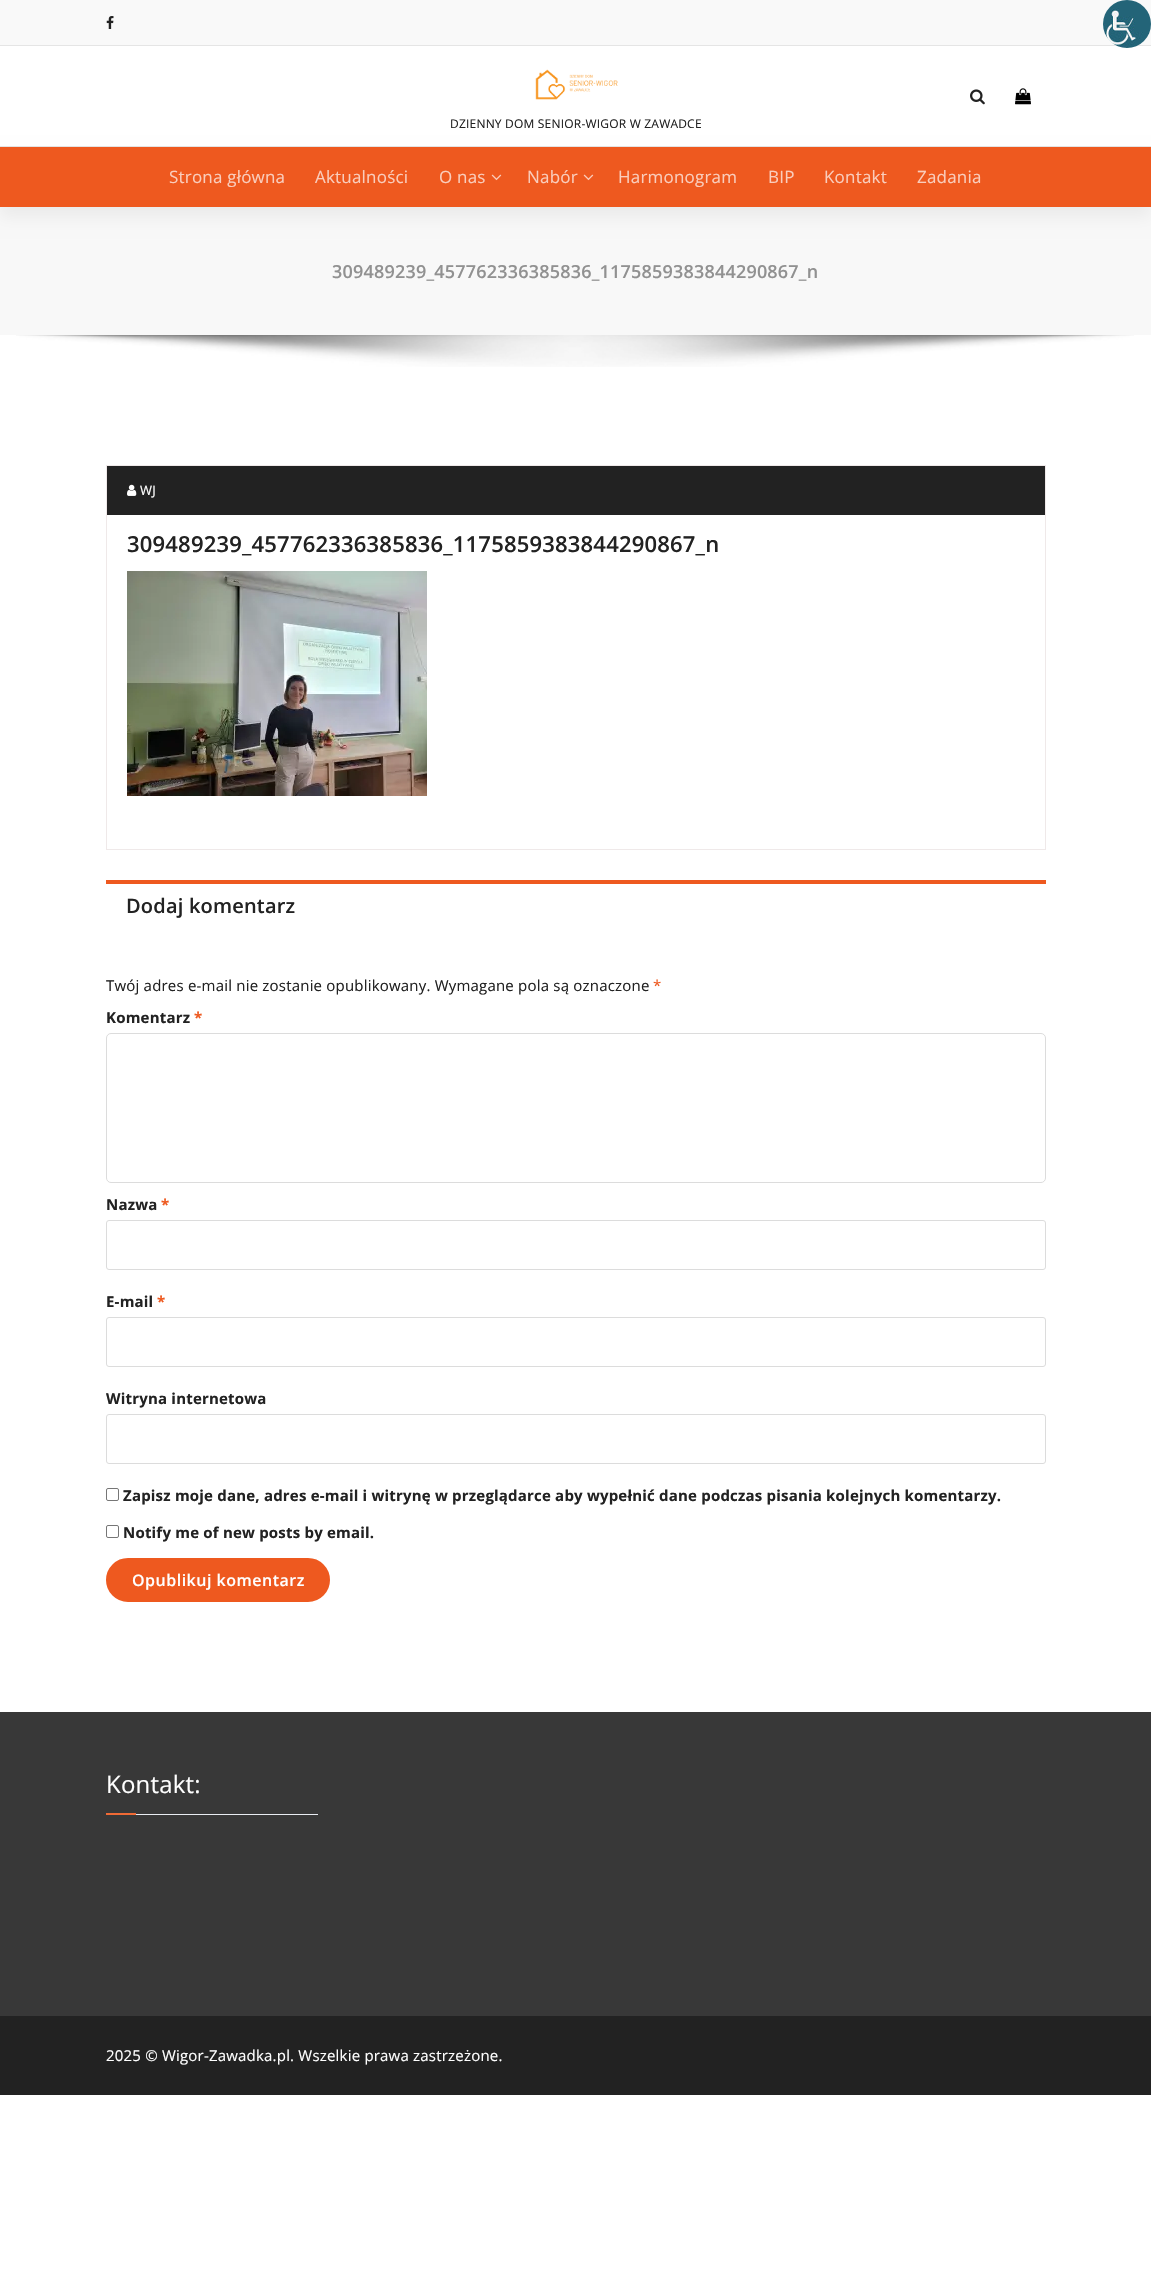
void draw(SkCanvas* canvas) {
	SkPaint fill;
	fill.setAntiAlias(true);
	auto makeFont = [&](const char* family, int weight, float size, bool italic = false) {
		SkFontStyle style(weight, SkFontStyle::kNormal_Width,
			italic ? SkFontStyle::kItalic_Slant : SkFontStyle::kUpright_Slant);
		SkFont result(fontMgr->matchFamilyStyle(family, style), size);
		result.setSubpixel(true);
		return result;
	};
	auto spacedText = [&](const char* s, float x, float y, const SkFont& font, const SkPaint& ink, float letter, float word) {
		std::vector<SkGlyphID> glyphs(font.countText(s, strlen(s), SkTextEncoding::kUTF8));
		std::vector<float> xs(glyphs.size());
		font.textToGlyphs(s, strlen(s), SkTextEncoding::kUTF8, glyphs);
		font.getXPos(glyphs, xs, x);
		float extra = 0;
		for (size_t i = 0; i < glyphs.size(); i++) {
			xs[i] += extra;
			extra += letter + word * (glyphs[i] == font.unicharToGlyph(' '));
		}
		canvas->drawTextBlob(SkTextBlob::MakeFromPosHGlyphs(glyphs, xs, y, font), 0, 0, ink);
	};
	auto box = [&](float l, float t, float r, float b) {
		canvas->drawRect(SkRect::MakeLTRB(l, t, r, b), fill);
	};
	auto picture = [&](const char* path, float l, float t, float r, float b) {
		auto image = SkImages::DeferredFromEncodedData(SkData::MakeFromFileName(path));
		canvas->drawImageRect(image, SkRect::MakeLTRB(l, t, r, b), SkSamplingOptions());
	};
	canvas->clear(0xFFFFFFFF);
	fill.setColor(0xFFF9F9F9);
	box(0, 0, 1151, 45);
	fill.setColor(0xFFE5E5E5);
	box(0, 45, 1151, 46);
	picture("image0.png", 1103, 0, 1151, 48);
	picture("image1.png", 106, 16, 114, 29);
	box(0, 146, 1151, 147);
	picture("image2.png", 970, 89, 985, 105);
	picture("image3.png", 1015, 88, 1031, 105);
	picture("image4.png", 535, 69, 618, 100);
	fill.setColor(0xFFF8F8F8);
	box(0, 207, 1151, 335);
	fill.setColor(0x0D000000);
	fill.setMaskFilter(SkMaskFilter::MakeBlur(kNormal_SkBlurStyle, 7.5f));
	canvas->drawRect(SkRect::MakeLTRB(0, 157, 1151, 217), fill);
	fill.setMaskFilter(nullptr);
	fill.setColor(0xFFEE591F);
	box(0, 147, 1151, 207);
	picture("image5.png", 491, 174, 502, 181);
	picture("image5.png", 583, 174, 594, 181);
	picture("image6.png", 16, 335, 1134, 367);
	fill.setStyle(SkPaint::kStroke_Style);
	fill.setStrokeWidth(1);
	fill.setColor(0xFFEFE9E9);
	canvas->drawRect(SkRect::MakeLTRB(106.5f, 465.5f, 1045.5f, 849.5f), fill);
	fill.setStyle(SkPaint::kFill_Style);
	fill.setColor(0xFF222222);
	box(107, 466, 1045, 515);
	picture("image7.png", 127, 484, 137, 496);
	picture("image8.png", 127, 571, 427, 796);
	fill.setColor(0xFFEE591F);
	box(106, 880, 1046, 884);
	fill.setStyle(SkPaint::kStroke_Style);
	fill.setColor(0xFFDCDCDC);
	canvas->drawRoundRect(SkRect::MakeLTRB(106.5f, 1033.5f, 1045.5f, 1182.5f), 4.5f, 4.5f, fill);
	canvas->drawRoundRect(SkRect::MakeLTRB(106.5f, 1220.5f, 1045.5f, 1269.5f), 2.5f, 2.5f, fill);
	canvas->drawRoundRect(SkRect::MakeLTRB(106.5f, 1317.5f, 1045.5f, 1366.5f), 2.5f, 2.5f, fill);
	canvas->drawRoundRect(SkRect::MakeLTRB(106.5f, 1414.5f, 1045.5f, 1463.5f), 2.5f, 2.5f, fill);
	fill.setColor(0xFF767676);
	canvas->drawRoundRect(SkRect::MakeLTRB(106.5f, 1488.5f, 118.5f, 1500.5f), 1.5f, 1.5f, fill);
	canvas->drawRoundRect(SkRect::MakeLTRB(106.5f, 1525.5f, 118.5f, 1537.5f), 1.5f, 1.5f, fill);
	fill.setStyle(SkPaint::kFill_Style);
	fill.setColor(0xFFEE591F);
	canvas->drawRoundRect(SkRect::MakeLTRB(107, 1559, 329, 1601), 21, 21, fill);
	fill.setStyle(SkPaint::kStroke_Style);
	fill.setStrokeWidth(2);
	canvas->drawRoundRect(SkRect::MakeLTRB(107, 1559, 329, 1601), 21, 21, fill);
	fill.setStyle(SkPaint::kFill_Style);
	fill.setColor(0xFF383838);
	box(0, 1712, 1151, 2016);
	fill.setColor(0xFFE9ECF2);
	box(136, 1814, 318, 1815);
	fill.setColor(0xFFF06A35);
	box(106, 1813, 136, 1815);
	fill.setColor(0xFF222222);
	box(0, 2016, 1151, 2095);
	auto font1 = makeFont("Open Sans", 400, 12);
	spacedText("DZIENNY DOM SENIOR-WIGOR W ZAWADCE", 450, 128, font1, fill, 0.2f, 0);
	auto font2 = makeFont("Open Sans", 400, 17);
	fill.setColor(0xFFFACDBC);
	spacedText("Strona główna", 169, 183, font2, fill, 0.2f, 0);
	spacedText("Aktualności", 315, 183, font2, fill, 0.2f, 0);
	spacedText("O nas", 439, 183, font2, fill, 0.2f, 0);
	spacedText("Nabór", 527, 183, font2, fill, 0.2f, 0);
	spacedText("Harmonogram", 618, 183, font2, fill, 0.2f, 0);
	spacedText("BIP", 768, 183, font2, fill, 0.2f, 0);
	spacedText("Kontakt", 824, 183, font2, fill, 0.2f, 0);
	spacedText("Zadania", 917, 183, font2, fill, 0.2f, 0);
	auto font3 = makeFont("Open Sans", 600, 18);
	fill.setColor(0xFF919191);
	spacedText("309489239_457762336385836_1175859383844290867_n", 332, 278, font3, fill, 0.2f, 0);
	auto font4 = makeFont("Open Sans", 400, 13);
	fill.setColor(0xFFFFFFFF);
	spacedText("WJ", 140, 495, font4, fill, 0.2f, 0);
	auto font5 = makeFont("Open Sans", 600, 22);
	fill.setColor(0xFF222222);
	spacedText("309489239_457762336385836_1175859383844290867_n", 127, 552, font5, fill, 0.2f, 0);
	auto font6 = makeFont("Open Sans", 600, 20);
	spacedText("Dodaj komentarz", 126, 913, font6, fill, 0.2f, 0);
	auto font7 = makeFont("Open Sans", 400, 15);
	spacedText("Twój adres e-mail nie zostanie opublikowany. Wymagane pola są oznaczone", 106, 991, font7, fill, 0.2f, 0);
	fill.setColor(0xFFEE591F);
	spacedText("*", 653, 991, font7, fill, 0.2f, 0);
	auto font8 = makeFont("Open Sans", 700, 15);
	fill.setColor(0xFF222222);
	spacedText("Komentarz", 106, 1023, font8, fill, 0.2f, 0);
	fill.setColor(0xFFEE591F);
	spacedText("*", 194, 1023, font8, fill, 0.2f, 0);
	fill.setColor(0xFF222222);
	spacedText("Nazwa", 106, 1210, font8, fill, 0.2f, 0);
	fill.setColor(0xFFEE591F);
	spacedText("*", 161, 1210, font8, fill, 0.2f, 0);
	fill.setColor(0xFF222222);
	spacedText("E-mail", 106, 1307, font8, fill, 0.2f, 0);
	fill.setColor(0xFFEE591F);
	spacedText("*", 157, 1307, font8, fill, 0.2f, 0);
	fill.setColor(0xFF222222);
	spacedText("Witryna internetowa", 106, 1404, font8, fill, 0.2f, 0);
	spacedText("Zapisz moje dane, adres e-mail i witrynę w przeglądarce aby wypełnić dane podczas pisania kolejnych komentarzy.", 123, 1501, font8, fill, 0.2f, 0);
	spacedText("Notify me of new posts by email.", 123, 1538, font8, fill, 0.2f, 0);
	auto font9 = makeFont("Open Sans", 600, 16);
	fill.setColor(0xFFFFFFFF);
	spacedText("Opublikuj komentarz", 132, 1586, font9, fill, 0.5f, 0);
	auto font10 = makeFont("Open Sans", 400, 24);
	spacedText("Kontakt:", 106, 1793, font10, fill, 0.2f, 0);
	spacedText("2025 © Wigor-Zawadka.pl. Wszelkie prawa zastrzeżone.", 106, 2061, font7, fill, 0.2f, 0);
}
